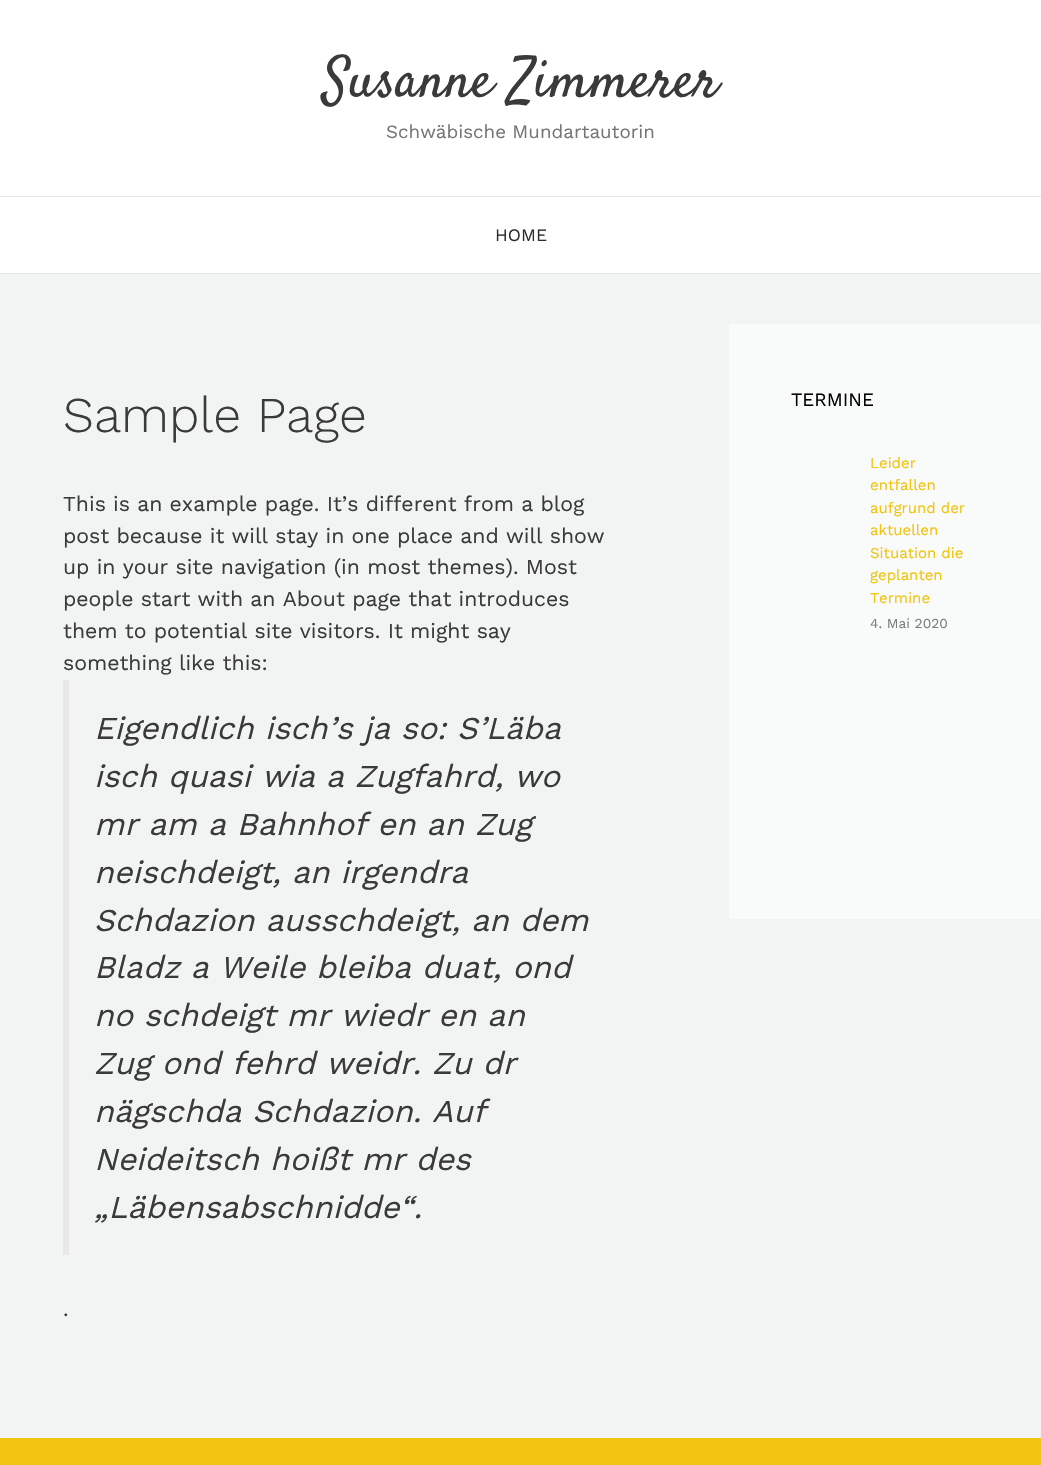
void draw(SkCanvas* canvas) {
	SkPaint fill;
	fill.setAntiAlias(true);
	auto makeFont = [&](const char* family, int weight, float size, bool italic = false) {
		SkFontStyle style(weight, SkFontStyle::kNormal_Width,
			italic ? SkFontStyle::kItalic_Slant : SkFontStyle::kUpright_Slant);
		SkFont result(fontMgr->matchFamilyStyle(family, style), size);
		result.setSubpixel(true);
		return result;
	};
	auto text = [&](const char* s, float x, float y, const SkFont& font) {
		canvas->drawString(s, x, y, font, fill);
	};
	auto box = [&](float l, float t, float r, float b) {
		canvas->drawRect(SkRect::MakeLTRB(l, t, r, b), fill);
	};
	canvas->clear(0xFFF2F4F4);
	fill.setColor(0xFFFFFFFF);
	box(0, 0, 1041, 196);
	box(0, 197, 1041, 273);
	fill.setColor(0xFFE6E6E6);
	box(0, 196, 1041, 197);
	box(0, 273, 1041, 274);
	fill.setColor(0xFFE8E8E8);
	box(63, 680, 69, 1255);
	fill.setColor(0xFFF9FAFA);
	box(729, 324, 1041, 919);
	fill.setColor(0xFFF1C40F);
	box(0, 1438, 1041, 1465);
	auto font1 = makeFont("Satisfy", 400, 56.25f);
	fill.setColor(0xFF3A3A3A);
	text("Susanne Zimmerer", 323, 96, font1);
	auto font2 = makeFont("Work Sans", 400, 18.75f);
	fill.setColor(0xFF757575);
	text("Schwäbische Mundartautorin", 386, 138, font2);
	auto font3 = makeFont("Work Sans", 400, 17.5f);
	fill.setColor(0xFF2D2D2D);
	text("HOME", 495, 241, font3);
	auto font4 = makeFont("Work Sans", 300, 50);
	fill.setColor(0xFF3A3A3A);
	text("Sample Page", 63, 432, font4);
	auto font5 = makeFont("Work Sans", 400, 21.25f);
	text("This is an example page. It’s different from a blog", 63, 511, font5);
	text("post because it will stay in one place and will show", 63, 543, font5);
	text("up in your site navigation (in most themes). Most", 63, 574, font5);
	text("people start with an About page that introduces", 63, 606, font5);
	text("them to potential site visitors. It might say", 63, 638, font5);
	text("something like this:", 63, 670, font5);
	auto font6 = makeFont("Work Sans", 400, 31.9f, true);
	text("Eigendlich isch’s ja so: S’Läba", 94, 739, font6);
	text("isch quasi wia a Zugfahrd, wo", 94, 787, font6);
	text("mr am a Bahnhof en an Zug", 94, 835, font6);
	text("neischdeigt, an irgendra", 94, 883, font6);
	text("Schdazion ausschdeigt, an dem", 94, 931, font6);
	text("Bladz a Weile bleiba duat, ond", 94, 978, font6);
	text("no schdeigt mr wiedr en an", 94, 1026, font6);
	text("Zug ond fehrd weidr. Zu dr", 94, 1074, font6);
	text("nägschda Schdazion. Auf", 94, 1122, font6);
	text("Neideitsch hoißt mr des", 94, 1170, font6);
	text("„Läbensabschnidde“.", 94, 1218, font6);
	text(".", 63, 1316, font5);
	fill.setColor(0xFF000000);
	text("TERMINE", 791, 406, font2);
	auto font7 = makeFont("Work Sans", 400, 15);
	fill.setColor(0xFFF1C40F);
	text("Leider", 870, 468, font7);
	text("entfallen", 870, 490, font7);
	text("aufgrund der", 870, 513, font7);
	text("aktuellen", 870, 535, font7);
	text("Situation die", 870, 558, font7);
	text("geplanten", 870, 580, font7);
	text("Termine", 870, 603, font7);
	auto font8 = makeFont("Work Sans", 400, 13.75f);
	fill.setColor(0xFF7D7D7D);
	text("4. Mai 2020", 870, 628, font8);
}
